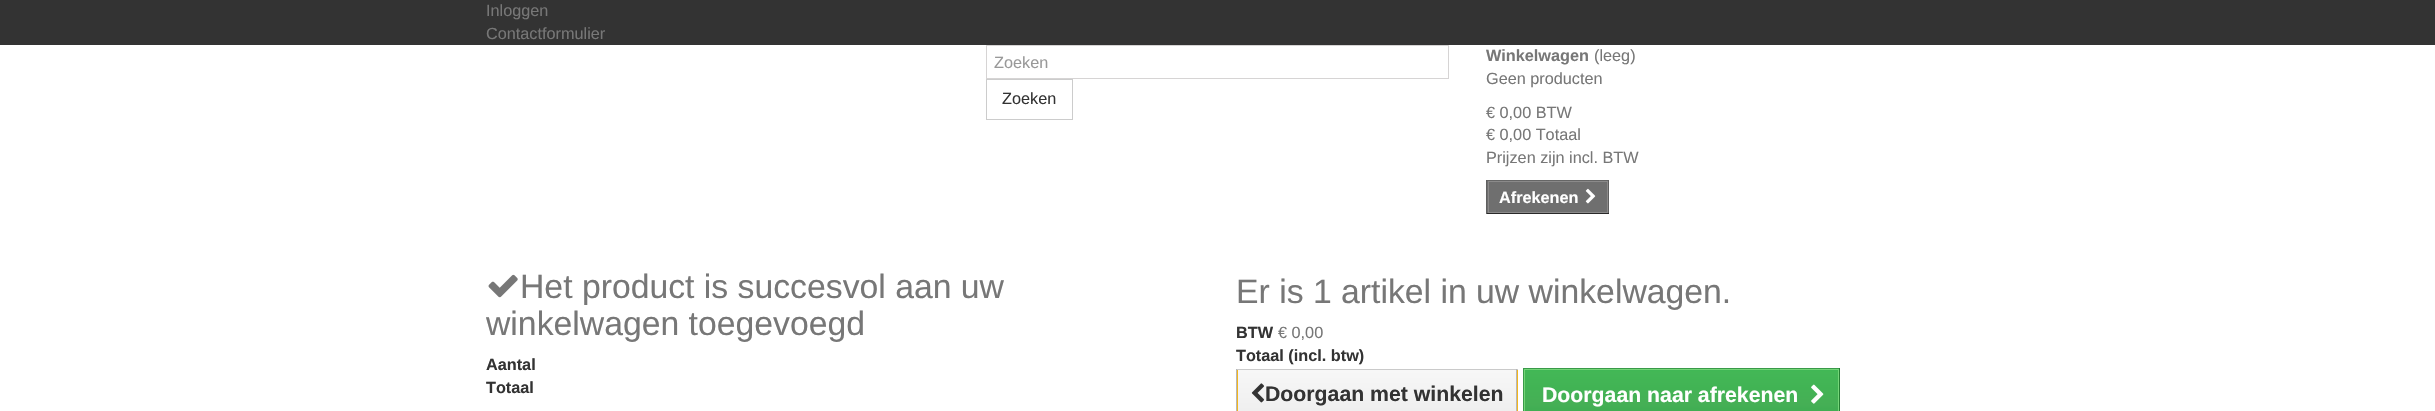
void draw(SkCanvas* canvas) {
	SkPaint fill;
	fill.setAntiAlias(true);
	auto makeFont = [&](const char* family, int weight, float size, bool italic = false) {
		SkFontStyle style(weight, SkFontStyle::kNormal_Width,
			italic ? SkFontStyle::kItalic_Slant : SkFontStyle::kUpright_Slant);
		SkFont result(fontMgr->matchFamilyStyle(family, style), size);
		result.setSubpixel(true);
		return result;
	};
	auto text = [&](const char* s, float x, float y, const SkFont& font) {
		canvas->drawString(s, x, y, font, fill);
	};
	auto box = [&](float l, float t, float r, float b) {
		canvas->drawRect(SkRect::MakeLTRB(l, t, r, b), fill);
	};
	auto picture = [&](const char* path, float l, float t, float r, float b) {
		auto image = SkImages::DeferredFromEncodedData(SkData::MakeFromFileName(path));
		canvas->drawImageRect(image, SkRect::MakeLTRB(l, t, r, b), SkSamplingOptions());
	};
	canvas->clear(0xFFFFFFFF);
	fill.setColor(0xFF333333);
	box(0, 0, 2435, 45);
	fill.setStyle(SkPaint::kStroke_Style);
	fill.setStrokeWidth(1);
	fill.setColor(0xFFD6D4D4);
	canvas->drawRect(SkRect::MakeLTRB(986.5f, 45.5f, 1448.5f, 78.5f), fill);
	fill.setColor(0xFFCCCCCC);
	canvas->drawRect(SkRect::MakeLTRB(986.5f, 79.5f, 1072.5f, 119.5f), fill);
	fill.setStyle(SkPaint::kFill_Style);
	fill.setColor(0xFF6F6F6F);
	box(1487, 181, 1607, 213);
	fill.setColor(0xFF666666);
	box(1486, 180, 1609, 181);
	fill.setColor(0xFF5F5F5F);
	box(1608, 180, 1609, 214);
	fill.setColor(0xFF292929);
	box(1486, 213, 1609, 214);
	fill.setColor(0xFF5F5F5F);
	box(1486, 180, 1487, 214);
	fill.setStyle(SkPaint::kStroke_Style);
	fill.setColor(0xFF8B8A8A);
	canvas->drawRect(SkRect::MakeLTRB(1488.5f, 181.5f, 1607.5f, 212.5f), fill);
	picture("image0.png", 1585, 188, 1596, 204);
	picture("image1.png", 488, 274, 518, 298);
	fill.setStyle(SkPaint::kFill_Style);
	fill.setColor(0xFFF4B61B);
	box(1237, 370, 1518, 411);
	fill.setColor(0xFFCACACA);
	box(1236, 369, 1518, 370);
	fill.setColor(0xFFB7B7B7);
	box(1516, 369, 1517, 411);
	box(1236, 369, 1237, 411);
	{
		const SkColor colors[] = {0xFFF7F7F7, 0xFFEDEDED};
		const float stops[] = {0, 1};
		const SkPoint ends[] = {{1377, 370}, {1377, 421}};
		fill.setShader(SkGradientShader::MakeLinear(ends, colors, stops, 2, SkTileMode::kClamp));
		fill.setAlpha(255);
	}
	box(1238, 370, 1516, 411);
	picture("image2.png", 1251, 383, 1265, 403);
	{
		const SkColor colors[] = {0xFF43B754, 0xFF41B757, 0xFF41B854, 0xFF43B756, 0xFF41B354, 0xFF44B355, 0xFF45AF55, 0xFF41AE53, 0xFF42AC52, 0xFF41AE55, 0xFF43AB54, 0xFF42AC52};
		const float stops[] = {0, 0.02f, 0.04f, 0.06f, 0.38f, 0.4f, 0.66f, 0.74f, 0.91f, 0.94f, 0.96f, 1};
		const SkPoint ends[] = {{1681, 369}, {1681, 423}};
		fill.setShader(SkGradientShader::MakeLinear(ends, colors, stops, 12, SkTileMode::kClamp));
		fill.setAlpha(255);
	}
	box(1525, 370, 1838, 411);
	fill.setShader(nullptr);
	fill.setColor(0xFF399A49);
	box(1523, 368, 1840, 369);
	fill.setColor(0xFF247F32);
	box(1839, 368, 1840, 411);
	fill.setColor(0xFF399A49);
	box(1523, 368, 1524, 411);
	fill.setStyle(SkPaint::kStroke_Style);
	fill.setColor(0xFF74D578);
	canvas->drawRect(SkRect::MakeLTRB(1524.5f, 369.5f, 1838.5f, 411.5f), fill);
	picture("image3.png", 1811, 384, 1824, 404);
	auto font1 = makeFont("Liberation Sans", 400, 16.25f);
	fill.setStyle(SkPaint::kFill_Style);
	fill.setColor(0xFF777777);
	text("Inloggen", 486, 16, font1);
	text("Contactformulier", 486, 39, font1);
	fill.setColor(0xFF999999);
	text("Zoeken", 994, 68, font1);
	fill.setColor(0xFF333333);
	text("Zoeken", 1002, 104, font1);
	auto font2 = makeFont("Liberation Sans", 700, 16.25f);
	fill.setColor(0xFF777777);
	text("Winkelwagen", 1486, 61, font2);
	text("(leeg)", 1594, 61, font1);
	text("Geen producten", 1486, 84, font1);
	text("€ 0,00 BTW", 1486, 118, font1);
	text("€ 0,00 Totaal", 1486, 140, font1);
	text("Prijzen zijn incl. BTW", 1486, 163, font1);
	fill.setColor(0xFFFFFFFF);
	text("Afrekenen", 1499, 203, font2);
	auto font3 = makeFont("Liberation Sans", 400, 33.75f);
	fill.setColor(0xFF777777);
	text("Het product is succesvol aan uw", 520, 298, font3);
	text("winkelwagen toegevoegd", 486, 335, font3);
	fill.setColor(0xFF333333);
	text("Aantal", 486, 370, font2);
	text("Totaal", 486, 393, font2);
	fill.setColor(0xFF777777);
	text("Er is 1 artikel in uw winkelwagen.", 1236, 303, font3);
	fill.setColor(0xFF333333);
	text("BTW", 1236, 338, font2);
	fill.setColor(0xFF777777);
	text("€ 0,00", 1278, 338, font1);
	fill.setColor(0xFF333333);
	text("Totaal (incl. btw)", 1236, 361, font2);
	auto font4 = makeFont("Liberation Sans", 700, 21.25f);
	text("Doorgaan met winkelen", 1265, 401, font4);
	fill.setColor(0xFFFFFFFF);
	text("Doorgaan naar afrekenen", 1542, 402, font4);
}
